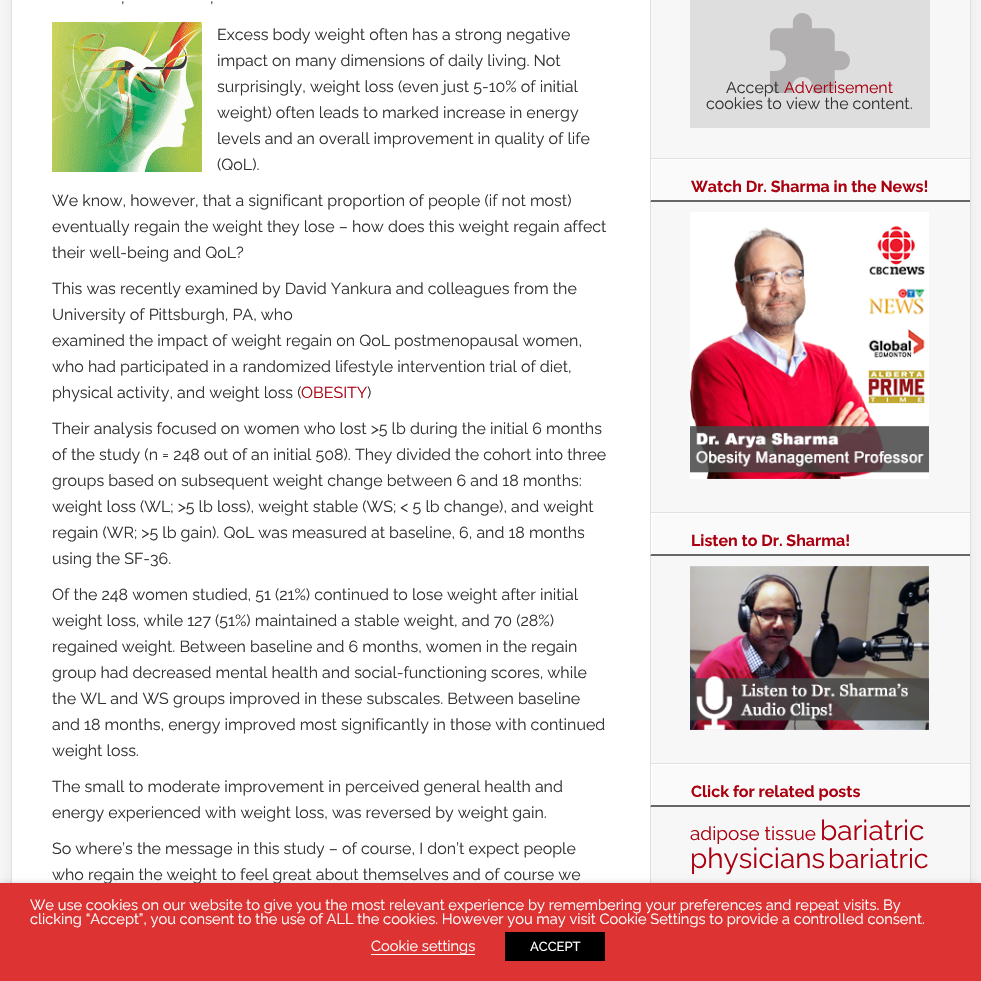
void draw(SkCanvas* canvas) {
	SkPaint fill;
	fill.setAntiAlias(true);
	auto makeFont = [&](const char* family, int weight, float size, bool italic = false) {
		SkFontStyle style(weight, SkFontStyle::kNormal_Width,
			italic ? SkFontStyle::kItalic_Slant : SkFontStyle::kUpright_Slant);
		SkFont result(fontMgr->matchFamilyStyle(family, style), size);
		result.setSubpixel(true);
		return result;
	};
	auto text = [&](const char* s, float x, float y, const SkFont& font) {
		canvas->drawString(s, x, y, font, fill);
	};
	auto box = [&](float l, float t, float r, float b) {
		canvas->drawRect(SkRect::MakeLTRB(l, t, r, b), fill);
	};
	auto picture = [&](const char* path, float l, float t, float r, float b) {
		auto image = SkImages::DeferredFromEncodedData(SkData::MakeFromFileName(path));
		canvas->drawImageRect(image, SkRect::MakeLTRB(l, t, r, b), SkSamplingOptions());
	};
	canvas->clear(0xFFF8F8F8);
	fill.setColor(0x12000000);
	fill.setMaskFilter(SkMaskFilter::MakeBlur(kNormal_SkBlurStyle, 7.5f));
	canvas->drawRect(SkRect::MakeLTRB(11, -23, 971, 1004), fill);
	fill.setMaskFilter(nullptr);
	fill.setColor(0xFFFFFFFF);
	box(12, 0, 650, 883);
	fill.setColor(0xFFE0E0E0);
	box(970, 0, 971, 883);
	box(11, 0, 12, 883);
	box(650, 0, 651, 883);
	picture("image0.png", 52, 22, 202, 172);
	fill.setColor(0xFFF7F7F7);
	box(651, 0, 970, 883);
	fill.setColor(0xFFDFDEDE);
	box(690, 0, 930, 128);
	picture("image1.png", 770, 13, 850, 93);
	fill.setColor(0xFFFAFAFA);
	box(650, 160, 970, 202);
	canvas->save();
	canvas->clipRect(SkRect::MakeLTRB(651, 159, 970, 200));
	fill.setColor(0xFFFFFFFF);
	canvas->drawPath(SkPathBuilder(SkPathFillType::kEvenOdd).moveTo(552, 60).lineTo(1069, 60).lineTo(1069, 299).lineTo(552, 299).close().moveTo(652, 160).lineTo(971, 160).lineTo(971, 201).lineTo(652, 201).close().detach(), fill);
	canvas->restore();
	fill.setColor(0xFFE0E0E0);
	box(650, 158, 970, 159);
	fill.setColor(0xFF666666);
	canvas->drawPath(SkPathBuilder().moveTo(970, 202).lineTo(650, 202).lineTo(651, 200).lineTo(970, 200).close().detach(), fill);
	fill.setColor(0xFFE0E0E0);
	canvas->drawPath(SkPathBuilder().moveTo(650, 202).lineTo(650, 158).lineTo(651, 159).lineTo(651, 200).close().detach(), fill);
	picture("image2.png", 690, 212, 929, 479);
	fill.setColor(0xFFFAFAFA);
	box(650, 514, 970, 556);
	canvas->save();
	canvas->clipRect(SkRect::MakeLTRB(651, 513, 970, 554));
	fill.setColor(0xFFFFFFFF);
	canvas->drawPath(SkPathBuilder(SkPathFillType::kEvenOdd).moveTo(552, 414).lineTo(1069, 414).lineTo(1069, 653).lineTo(552, 653).close().moveTo(652, 514).lineTo(971, 514).lineTo(971, 555).lineTo(652, 555).close().detach(), fill);
	canvas->restore();
	fill.setColor(0xFFE0E0E0);
	box(650, 512, 970, 513);
	fill.setColor(0xFF666666);
	canvas->drawPath(SkPathBuilder().moveTo(970, 556).lineTo(650, 556).lineTo(651, 554).lineTo(970, 554).close().detach(), fill);
	fill.setColor(0xFFE0E0E0);
	canvas->drawPath(SkPathBuilder().moveTo(650, 556).lineTo(650, 512).lineTo(651, 513).lineTo(651, 554).close().detach(), fill);
	picture("image3.png", 690, 566, 929, 730);
	fill.setColor(0xFFFAFAFA);
	box(650, 765, 970, 807);
	canvas->save();
	canvas->clipRect(SkRect::MakeLTRB(651, 764, 970, 805));
	fill.setColor(0xFFFFFFFF);
	canvas->drawPath(SkPathBuilder(SkPathFillType::kEvenOdd).moveTo(552, 665).lineTo(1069, 665).lineTo(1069, 904).lineTo(552, 904).close().moveTo(652, 765).lineTo(971, 765).lineTo(971, 806).lineTo(652, 806).close().detach(), fill);
	canvas->restore();
	fill.setColor(0xFFE0E0E0);
	box(650, 763, 970, 764);
	fill.setColor(0xFF666666);
	canvas->drawPath(SkPathBuilder().moveTo(970, 807).lineTo(650, 807).lineTo(651, 805).lineTo(970, 805).close().detach(), fill);
	fill.setColor(0xFFE0E0E0);
	canvas->drawPath(SkPathBuilder().moveTo(650, 807).lineTo(650, 763).lineTo(651, 764).lineTo(651, 805).close().detach(), fill);
	fill.setColor(0x80000000);
	fill.setMaskFilter(SkMaskFilter::MakeBlur(kNormal_SkBlurStyle, 5));
	canvas->drawRect(SkRect::MakeLTRB(0, 888, 981, 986), fill);
	fill.setMaskFilter(nullptr);
	auto font1 = makeFont("Raleway", 400, 16);
	fill.setColor(0xFF333333);
	text(",", 121, 3, font1);
	text(",", 210, 3, font1);
	text("Excess body weight often has a strong negative", 217, 40, font1);
	text("impact on many dimensions of daily living. Not", 217, 66, font1);
	text("surprisingly, weight loss (even just 5-10% of initial", 217, 92, font1);
	text("weight) often leads to marked increase in energy", 217, 118, font1);
	text("levels and an overall improvement in quality of life", 217, 144, font1);
	text("(QoL).", 217, 170, font1);
	text("We know, however, that a significant proportion of people (if not most)", 52, 206, font1);
	text("eventually regain the weight they lose – how does this weight regain affect", 52, 232, font1);
	text("their well-being and QoL?", 52, 258, font1);
	text("This was recently examined by David Yankura and colleagues from the", 52, 294, font1);
	text("University of Pittsburgh, PA, who", 52, 320, font1);
	text("examined the impact of weight regain on QoL postmenopausal women,", 52, 346, font1);
	text("who had participated in a randomized lifestyle intervention trial of diet,", 52, 372, font1);
	text("physical activity, and weight loss (", 52, 398, font1);
	fill.setColor(0xFFAA0010);
	text("OBESITY", 301, 398, font1);
	fill.setColor(0xFF333333);
	text(")", 367, 398, font1);
	text("Their analysis focused on women who lost >5 lb during the initial 6 months", 52, 434, font1);
	text("of the study (n = 248 out of an initial 508). They divided the cohort into three", 52, 460, font1);
	text("groups based on subsequent weight change between 6 and 18 months:", 52, 486, font1);
	text("weight loss (WL; >5 lb loss), weight stable (WS; < 5 lb change), and weight", 52, 512, font1);
	text("regain (WR; >5 lb gain). QoL was measured at baseline, 6, and 18 months", 52, 538, font1);
	text("using the SF-36.", 52, 564, font1);
	text("Of the 248 women studied, 51 (21%) continued to lose weight after initial", 52, 600, font1);
	text("weight loss, while 127 (51%) maintained a stable weight, and 70 (28%)", 52, 626, font1);
	text("regained weight. Between baseline and 6 months, women in the regain", 52, 652, font1);
	text("group had decreased mental health and social-functioning scores, while", 52, 678, font1);
	text("the WL and WS groups improved in these subscales. Between baseline", 52, 704, font1);
	text("and 18 months, energy improved most significantly in those with continued", 52, 730, font1);
	text("weight loss.", 52, 756, font1);
	text("The small to moderate improvement in perceived general health and", 52, 792, font1);
	text("energy experienced with weight loss, was reversed by weight gain.", 52, 818, font1);
	text("So where’s the message in this study – of course, I don’t expect people", 52, 854, font1);
	text("who regain the weight to feel great about themselves and of course we", 52, 880, font1);
	text("Accept", 726, 93, font1);
	fill.setColor(0xFFAA0010);
	text("Advertisement", 784, 93, font1);
	fill.setColor(0xFF333333);
	text("cookies to view the content.", 706, 109, font1);
	auto font2 = makeFont("Raleway", 700, 16);
	fill.setColor(0xFFAA0010);
	text("Watch Dr. Sharma in the News!", 691, 192, font2);
	text("Listen to Dr. Sharma!", 691, 546, font2);
	text("Click for related posts", 691, 797, font2);
	auto font3 = makeFont("Raleway", 400, 19);
	text("adipose tissue", 690, 840, font3);
	auto font4 = makeFont("Raleway", 400, 28);
	text("bariatric", 820, 840, font4);
	text("physicians", 690, 868, font4);
	auto font5 = makeFont("Raleway", 400, 27);
	text("bariatric", 828, 868, font5);
	fill.setColor(0xFFDD3333);
	box(0, 883, 981, 981);
	auto font6 = makeFont("Raleway", 400, 14.67f);
	fill.setColor(0xFFFFFFFF);
	text("We use cookies on our website to give you the most relevant experience by remembering your preferences and repeat visits. By", 30, 910, font6);
	text("clicking “Accept”, you consent to the use of ALL the cookies. However you may visit Cookie Settings to provide a controlled consent.", 30, 924, font6);
	box(371, 954, 475, 955);
	text("Cookie settings", 371, 951, font6);
	fill.setColor(0xFF000000);
	box(505, 932, 605, 961);
	auto font7 = makeFont("Raleway", 500, 13);
	fill.setColor(0xFFFFFFFF);
	text("ACCEPT", 530, 951, font7);
}
